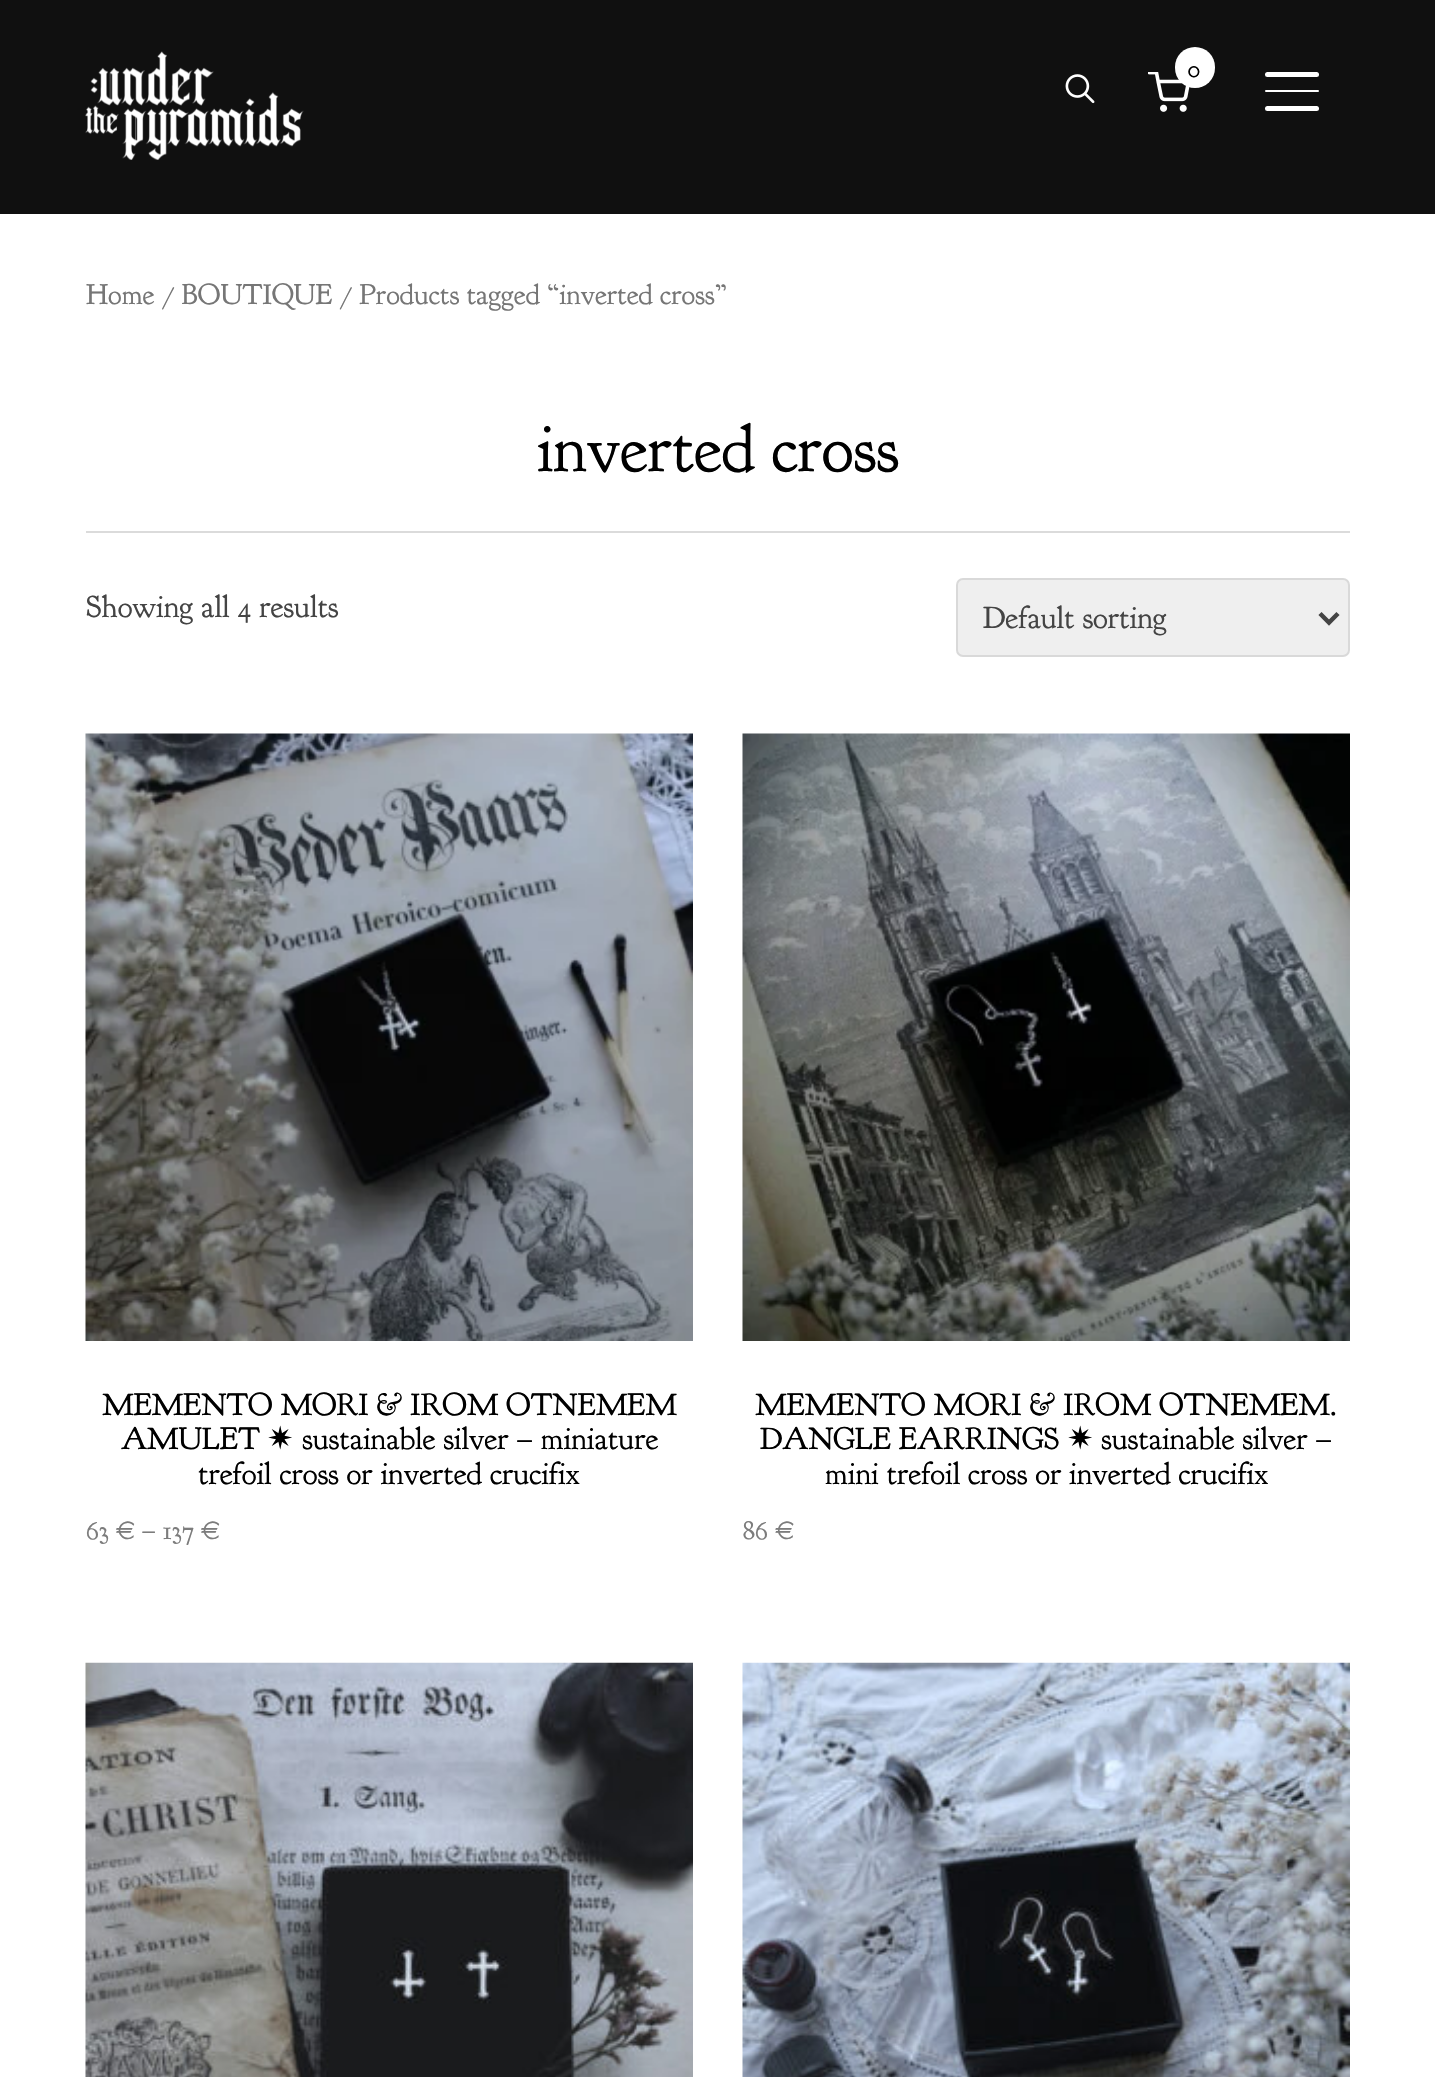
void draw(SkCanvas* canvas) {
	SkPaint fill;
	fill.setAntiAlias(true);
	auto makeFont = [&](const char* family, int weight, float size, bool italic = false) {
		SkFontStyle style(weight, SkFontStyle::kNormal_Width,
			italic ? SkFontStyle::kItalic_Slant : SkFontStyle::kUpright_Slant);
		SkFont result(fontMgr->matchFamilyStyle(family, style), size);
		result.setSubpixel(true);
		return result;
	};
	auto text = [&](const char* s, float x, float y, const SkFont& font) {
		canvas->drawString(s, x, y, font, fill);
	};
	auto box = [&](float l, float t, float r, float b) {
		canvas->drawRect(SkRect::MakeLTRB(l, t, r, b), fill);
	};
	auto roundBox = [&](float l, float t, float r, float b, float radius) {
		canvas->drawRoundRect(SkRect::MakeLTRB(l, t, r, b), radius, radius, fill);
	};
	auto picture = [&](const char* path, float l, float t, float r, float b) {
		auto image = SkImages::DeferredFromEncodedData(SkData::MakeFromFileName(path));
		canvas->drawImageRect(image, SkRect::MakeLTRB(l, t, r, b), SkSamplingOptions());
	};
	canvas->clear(0xFFFFFFFF);
	fill.setColor(0xFF101010);
	box(0, 0, 1435, 214);
	picture("image0.png", 85, 51, 304, 160);
	picture("image1.png", 1065, 74, 1095, 104);
	picture("image2.png", 1148, 72, 1190, 112);
	fill.setColor(0xFFFFFFFF);
	roundBox(1175, 47, 1215, 88, 20);
	roundBox(1265, 72, 1319, 77, 2.5f);
	roundBox(1265, 90, 1319, 92, 1);
	roundBox(1265, 106, 1319, 111, 2.5f);
	fill.setColor(0xFFDBDBDB);
	box(86, 531, 1350, 533);
	fill.setColor(0xFFEFEFEF);
	canvas->drawRoundRect(SkRect::MakeLTRB(957, 579, 1349, 656), 6, 6, fill);
	fill.setStyle(SkPaint::kStroke_Style);
	fill.setStrokeWidth(2);
	fill.setColor(0xFFD9D9D9);
	canvas->drawRoundRect(SkRect::MakeLTRB(957, 579, 1349, 656), 6, 6, fill);
	fill.setStrokeWidth(4.5f);
	fill.setColor(0xFF444444);
	canvas->drawPath(SkPathBuilder().moveTo(1320, 613.5f).lineTo(1329, 622.5f).lineTo(1338, 613.5f).detach(), fill);
	picture("image3.png", 85, 733, 693, 1341);
	picture("image4.png", 742, 733, 1350, 1341);
	picture("image5.png", 85, 1662, 693, 2077);
	picture("image6.png", 742, 1662, 1350, 2077);
	auto font1 = makeFont("Goudy Bookletter 1911", 400, 25);
	fill.setStyle(SkPaint::kFill_Style);
	fill.setColor(0xFF000000);
	text("0", 1188, 77, font1);
	auto font2 = makeFont("Goudy Bookletter 1911", 400, 29);
	fill.setColor(0xFF767676);
	text("Home / BOUTIQUE / Products tagged “inverted cross”", 86, 304, font2);
	auto font3 = makeFont("Goudy Bookletter 1911", 400, 67.5f);
	fill.setColor(0xFF000000);
	text("inverted cross", 537, 471, font3);
	auto font4 = makeFont("Goudy Bookletter 1911", 400, 31.5f);
	fill.setColor(0xFF444444);
	text("Showing all 4 results", 86, 617, font4);
	text("Default sorting", 983, 628, font4);
	fill.setColor(0xFF000000);
	text("MEMENTO MORI & IROM OTNEMEM", 102, 1415, font4);
	text("AMULET", 121, 1449, font4);
	auto font5 = makeFont("DejaVu Sans", 400, 31.5f);
	text("✷", 267, 1449, font5);
	text("sustainable silver – miniature", 302, 1449, font4);
	text("trefoil cross or inverted crucifix", 198, 1484, font4);
	auto font6 = makeFont("Goudy Bookletter 1911", 400, 27);
	fill.setColor(0xFF7C7C7C);
	text("63 € – 137 €", 86, 1539, font6);
	fill.setColor(0xFF000000);
	text("MEMENTO MORI & IROM OTNEMEM.", 755, 1415, font4);
	text("DANGLE EARRINGS", 760, 1449, font4);
	text("✷", 1067, 1449, font5);
	text("sustainable silver –", 1101, 1449, font4);
	text("mini trefoil cross or inverted crucifix", 825, 1484, font4);
	fill.setColor(0xFF7C7C7C);
	text("86 €", 743, 1539, font6);
}
